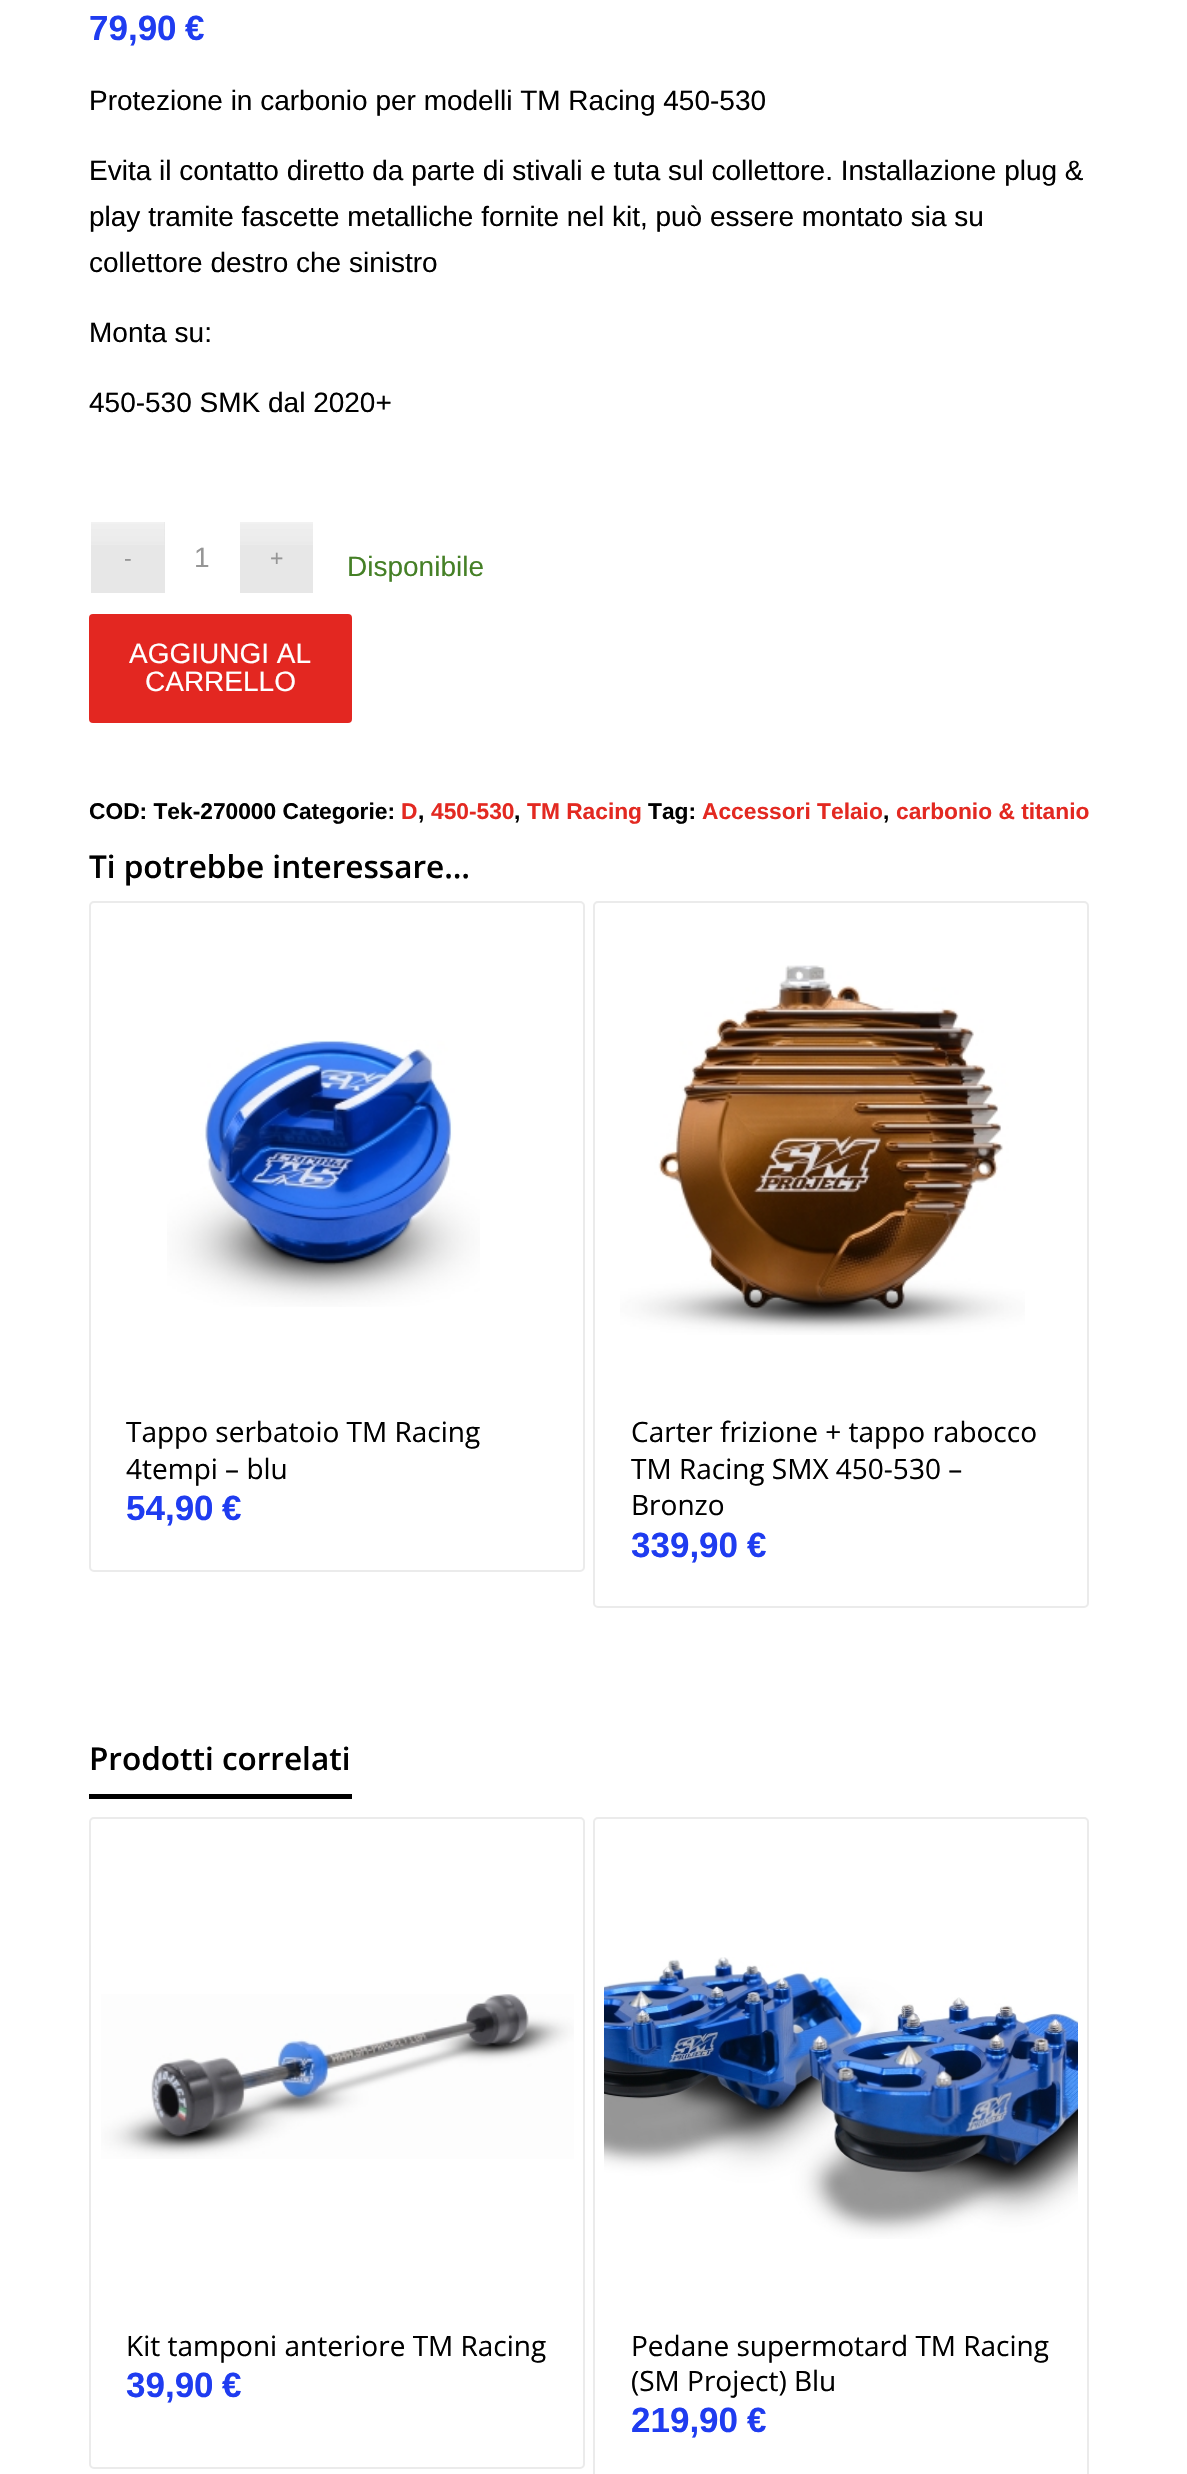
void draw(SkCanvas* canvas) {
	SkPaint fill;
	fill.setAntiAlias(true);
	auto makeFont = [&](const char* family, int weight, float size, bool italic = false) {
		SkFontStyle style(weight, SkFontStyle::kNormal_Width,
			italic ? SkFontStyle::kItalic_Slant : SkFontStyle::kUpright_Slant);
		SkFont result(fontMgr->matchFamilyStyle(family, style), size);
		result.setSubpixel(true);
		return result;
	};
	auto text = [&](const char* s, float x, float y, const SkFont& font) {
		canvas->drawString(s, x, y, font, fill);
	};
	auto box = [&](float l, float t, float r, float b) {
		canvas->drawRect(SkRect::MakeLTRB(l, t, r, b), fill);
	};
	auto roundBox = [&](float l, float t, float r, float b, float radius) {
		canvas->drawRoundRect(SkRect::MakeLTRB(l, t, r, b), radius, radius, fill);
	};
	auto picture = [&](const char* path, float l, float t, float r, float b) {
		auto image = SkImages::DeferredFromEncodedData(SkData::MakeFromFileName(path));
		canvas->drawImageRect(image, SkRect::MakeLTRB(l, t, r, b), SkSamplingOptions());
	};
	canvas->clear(0xFFFFFFFF);
	fill.setColor(0xFFE7E7E7);
	box(91, 522, 165, 593);
	picture("image0.png", 91, 522, 165, 545);
	box(240, 522, 313, 593);
	picture("image1.png", 240, 522, 313, 545);
	fill.setColor(0xFFE32721);
	roundBox(89, 614, 352, 723, 4);
	fill.setStyle(SkPaint::kStroke_Style);
	fill.setStrokeWidth(2);
	fill.setColor(0xFFEBEBEB);
	canvas->drawRoundRect(SkRect::MakeLTRB(90, 902, 584, 1571), 4, 4, fill);
	picture("image2.png", 167, 1040, 480, 1307);
	canvas->drawRoundRect(SkRect::MakeLTRB(594, 902, 1088, 1607), 4, 4, fill);
	picture("image3.png", 620, 965, 1025, 1335);
	fill.setStyle(SkPaint::kFill_Style);
	fill.setColor(0xFF000000);
	box(89, 1794, 352, 1799);
	fill.setStyle(SkPaint::kStroke_Style);
	fill.setColor(0xFFEBEBEB);
	canvas->drawRoundRect(SkRect::MakeLTRB(90, 1818, 584, 2468), 4, 4, fill);
	picture("image4.png", 101, 1994, 574, 2159);
	canvas->drawRoundRect(SkRect::MakeLTRB(594, 1818, 1088, 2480), 4, 4, fill);
	picture("image5.png", 604, 1957, 1078, 2239);
	auto font1 = makeFont("Liberation Sans", 700, 35);
	fill.setStyle(SkPaint::kFill_Style);
	fill.setColor(0xFF1F3CF0);
	text("79,90", 89, 40, font1);
	text("€", 185, 40, font1);
	auto font2 = makeFont("Liberation Sans", 400, 28);
	fill.setColor(0xFF000000);
	text("Protezione in carbonio per modelli TM Racing 450-530", 89, 110, font2);
	text("Evita il contatto diretto da parte di stivali e tuta sul collettore. Installazione plug &", 89, 180, font2);
	text("play tramite fascette metalliche fornite nel kit, può essere montato sia su", 89, 226, font2);
	text("collettore destro che sinistro", 89, 272, font2);
	text("Monta su:", 89, 342, font2);
	text("450-530 SMK dal 2020+", 89, 412, font2);
	auto font3 = makeFont("Liberation Sans", 400, 23);
	fill.setColor(0xFF969696);
	text("-", 124, 566, font3);
	text("1", 194, 567, font2);
	text("+", 270, 566, font3);
	fill.setColor(0xFF458026);
	text("Disponibile", 347, 576, font2);
	fill.setColor(0xFFFFFFFF);
	text("AGGIUNGI AL", 129, 663, font2);
	text("CARRELLO", 145, 691, font2);
	auto font4 = makeFont("Liberation Sans", 700, 22.75f);
	fill.setColor(0xFF000000);
	text("COD: Tek-270000 Categorie:", 89, 819, font4);
	fill.setColor(0xFFE32921);
	text("D", 401, 819, font4);
	fill.setColor(0xFF000000);
	text(",", 418, 819, font4);
	fill.setColor(0xFFE32921);
	text("450-530", 431, 819, font4);
	fill.setColor(0xFF000000);
	text(",", 514, 819, font4);
	fill.setColor(0xFFE32921);
	text("TM Racing", 527, 819, font4);
	fill.setColor(0xFF000000);
	text("Tag:", 648, 819, font4);
	fill.setColor(0xFFE32921);
	text("Accessori Telaio", 702, 819, font4);
	fill.setColor(0xFF000000);
	text(",", 883, 819, font4);
	fill.setColor(0xFFE32921);
	text("carbonio & titanio", 896, 819, font4);
	auto font5 = makeFont("Open Sans", 600, 31.5f);
	fill.setColor(0xFF000000);
	text("Ti potrebbe interessare…", 89, 878, font5);
	auto font6 = makeFont("Open Sans", 400, 28);
	text("Tappo serbatoio TM Racing", 126, 1442, font6);
	text("4tempi – blu", 126, 1479, font6);
	fill.setColor(0xFF1F3CF0);
	text("54,90", 126, 1520, font1);
	text("€", 222, 1520, font1);
	fill.setColor(0xFF000000);
	text("Carter frizione + tappo rabocco", 631, 1442, font6);
	text("TM Racing SMX 450-530 –", 631, 1479, font6);
	text("Bronzo", 631, 1515, font6);
	fill.setColor(0xFF1F3CF0);
	text("339,90", 631, 1557, font1);
	text("€", 747, 1557, font1);
	fill.setColor(0xFF000000);
	text("Prodotti correlati", 89, 1770, font5);
	text("Kit tamponi anteriore TM Racing", 126, 2356, font6);
	fill.setColor(0xFF1F3CF0);
	text("39,90", 126, 2397, font1);
	text("€", 222, 2397, font1);
	fill.setColor(0xFF000000);
	text("Pedane supermotard TM Racing", 631, 2356, font6);
	text("(SM Project) Blu", 631, 2391, font6);
	fill.setColor(0xFF1F3CF0);
	text("219,90", 631, 2432, font1);
	text("€", 747, 2432, font1);
}
